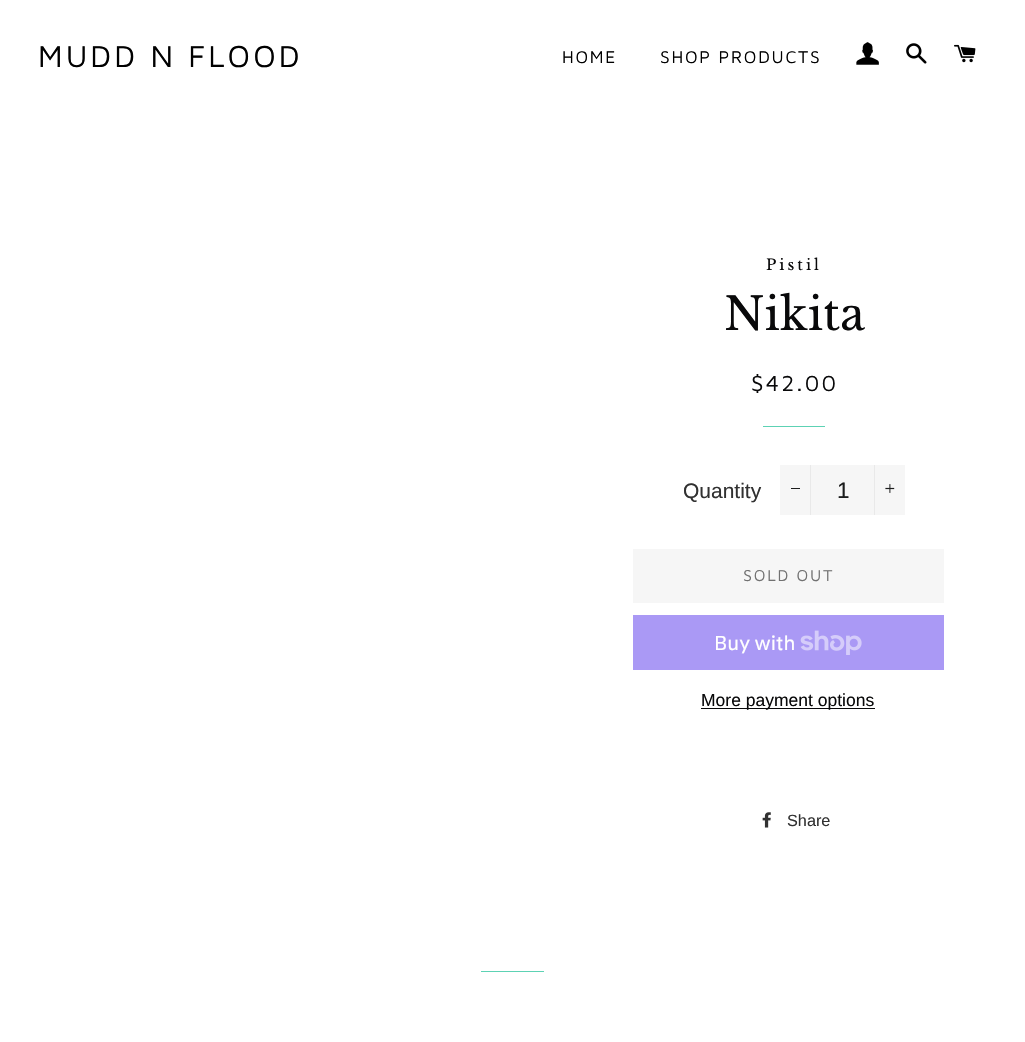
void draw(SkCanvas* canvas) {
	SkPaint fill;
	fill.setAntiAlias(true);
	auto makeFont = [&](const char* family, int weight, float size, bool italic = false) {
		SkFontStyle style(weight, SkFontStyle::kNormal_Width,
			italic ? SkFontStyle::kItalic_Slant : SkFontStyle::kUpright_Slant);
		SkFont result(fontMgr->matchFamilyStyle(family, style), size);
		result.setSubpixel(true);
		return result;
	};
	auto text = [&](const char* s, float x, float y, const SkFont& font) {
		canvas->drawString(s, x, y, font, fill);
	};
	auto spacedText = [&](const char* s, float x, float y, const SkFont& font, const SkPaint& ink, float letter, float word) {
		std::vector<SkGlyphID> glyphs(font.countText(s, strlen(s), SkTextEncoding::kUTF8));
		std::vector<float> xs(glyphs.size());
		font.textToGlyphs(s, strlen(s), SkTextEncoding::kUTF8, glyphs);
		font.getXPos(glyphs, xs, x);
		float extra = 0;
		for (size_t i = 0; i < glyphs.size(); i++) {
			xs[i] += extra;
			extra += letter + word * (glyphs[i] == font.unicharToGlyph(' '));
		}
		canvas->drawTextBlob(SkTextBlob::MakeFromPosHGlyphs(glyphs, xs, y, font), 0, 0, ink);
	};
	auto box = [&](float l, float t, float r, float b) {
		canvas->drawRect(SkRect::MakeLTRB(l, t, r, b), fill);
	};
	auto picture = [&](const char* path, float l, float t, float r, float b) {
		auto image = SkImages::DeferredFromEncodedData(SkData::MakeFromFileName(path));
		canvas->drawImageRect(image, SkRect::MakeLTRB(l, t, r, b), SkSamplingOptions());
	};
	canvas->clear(0xFFFFFFFF);
	picture("image0.png", 856, 42, 879, 65);
	picture("image1.png", 906, 43, 927, 64);
	picture("image2.png", 954, 44, 976, 63);
	fill.setColor(0xFF5DD2B4);
	box(763, 426, 825, 427);
	fill.setColor(0xFFF6F6F6);
	box(780, 465, 905, 515);
	fill.setColor(0xFFE9E9E9);
	box(810, 465, 811, 515);
	fill.setColor(0xFF1C1D1D);
	box(791, 488, 800, 489);
	fill.setColor(0xFFE9E9E9);
	box(874, 465, 875, 515);
	picture("image3.png", 885, 484, 895, 493);
	fill.setColor(0xFFF6F6F6);
	box(633, 549, 944, 603);
	fill.setColor(0xFFAA99F5);
	box(633, 615, 944, 670);
	picture("image4.png", 800, 630, 862, 655);
	fill.setColor(0xFF09090A);
	box(701, 708, 875, 709);
	picture("image5.png", 762, 812, 771, 828);
	fill.setColor(0xFF5DD2B4);
	box(481, 971, 544, 972);
	auto font1 = makeFont("Maven Pro", 400, 31.25f);
	fill.setColor(0xFF000000);
	spacedText("MUDD N FLOOD", 38, 67, font1, fill, 3.1f, 0);
	auto font2 = makeFont("Maven Pro", 400, 17.5f);
	spacedText("HOME", 562, 63, font2, fill, 1.75f, 0);
	spacedText("SHOP PRODUCTS", 660, 63, font2, fill, 1.75f, 0);
	auto font3 = makeFont("Libre Baskerville", 400, 15);
	fill.setColor(0xFF09090A);
	spacedText("Pistil", 766, 270, font3, fill, 3, 0);
	auto font4 = makeFont("Libre Baskerville", 400, 45);
	text("Nikita", 724, 330, font4);
	auto font5 = makeFont("Maven Pro", 400, 22.5f);
	spacedText("$42.00", 751, 391, font5, fill, 2.25f, 0);
	auto font6 = makeFont("Liberation Sans", 400, 21);
	fill.setColor(0xFF313131);
	text("Quantity", 683, 498, font6);
	auto font7 = makeFont("Liberation Sans", 400, 22.5f);
	fill.setColor(0xFF1C1D1D);
	text("1", 837, 498, font7);
	auto font8 = makeFont("Maven Pro", 400, 16.25f);
	fill.setColor(0xFF717171);
	spacedText("SOLD OUT", 743, 581, font8, fill, 1.75f, 0);
	auto font9 = makeFont("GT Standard", 400, 20);
	fill.setColor(0xFFFFFFFF);
	text("Buy with", 714, 650, font9);
	auto font10 = makeFont("Liberation Sans", 400, 17.5f);
	fill.setColor(0xFF09090A);
	text("More payment options", 701, 706, font10);
	auto font11 = makeFont("Liberation Sans", 400, 16.25f);
	fill.setColor(0xFF313131);
	text("Share", 787, 826, font11);
}
